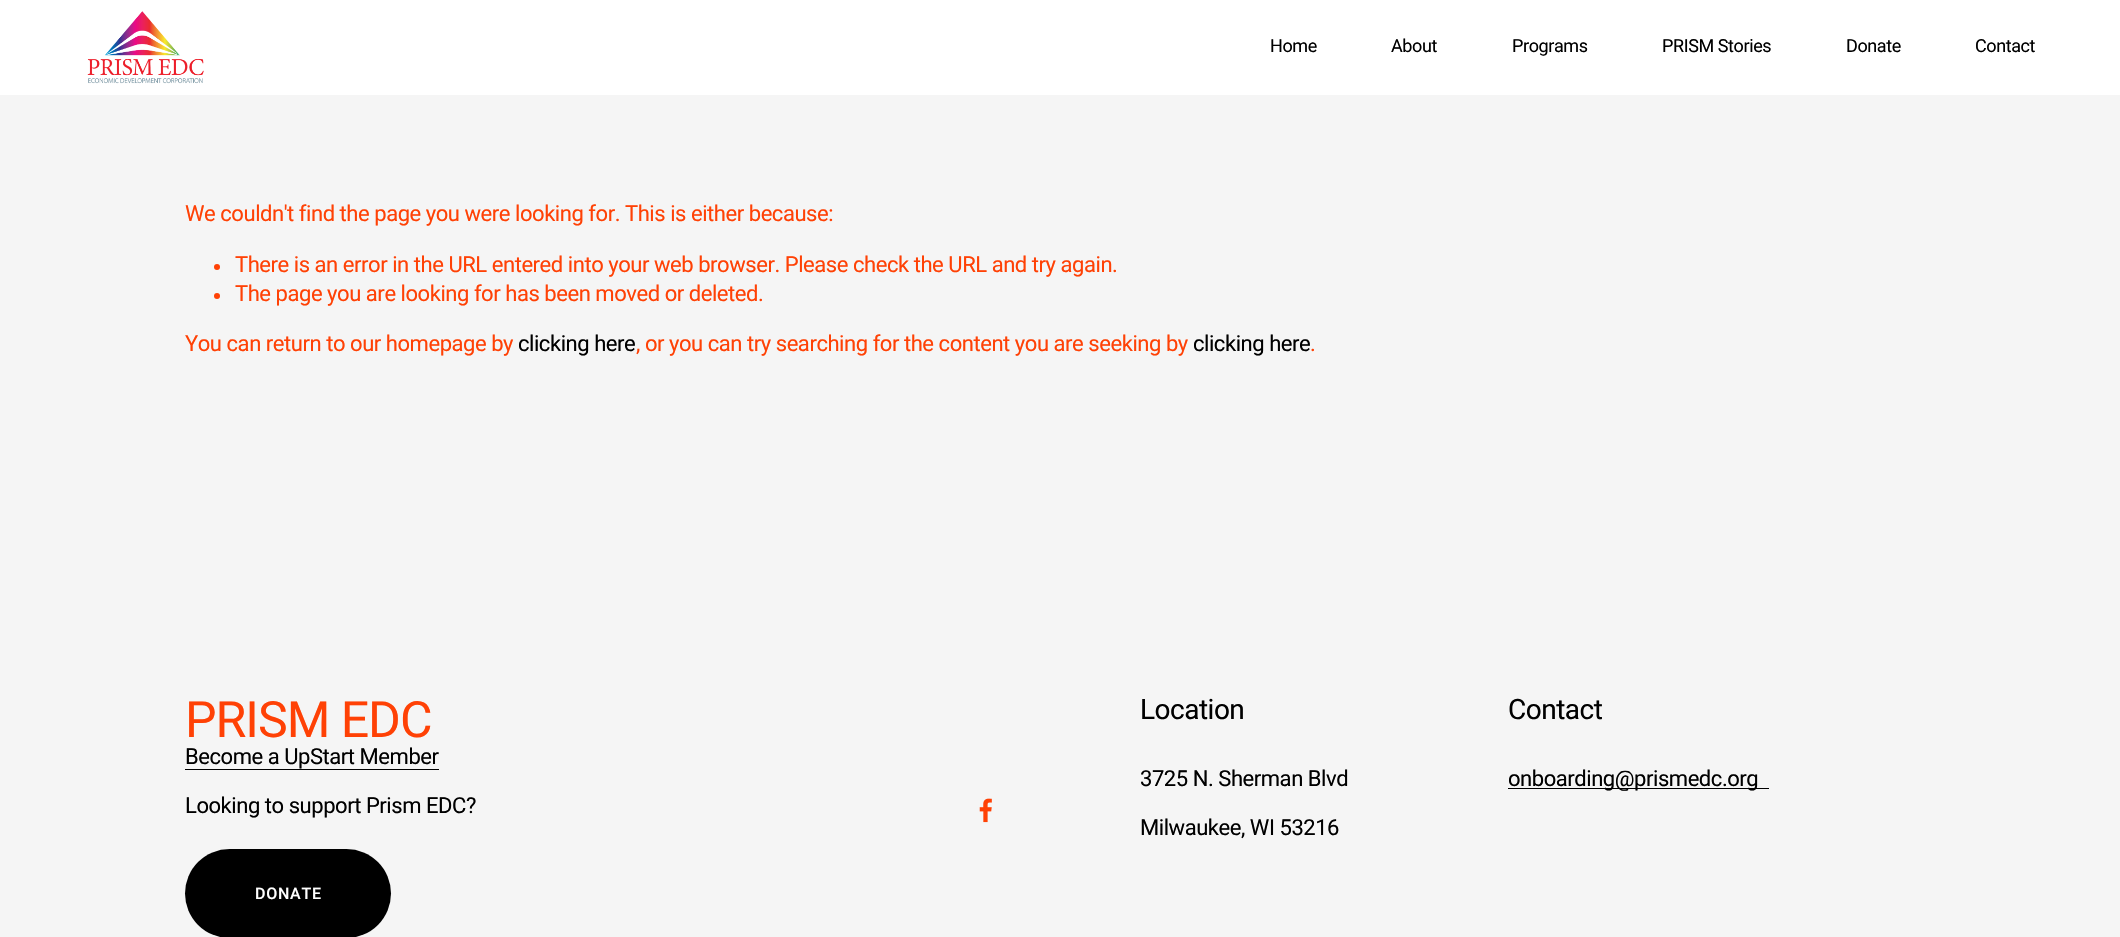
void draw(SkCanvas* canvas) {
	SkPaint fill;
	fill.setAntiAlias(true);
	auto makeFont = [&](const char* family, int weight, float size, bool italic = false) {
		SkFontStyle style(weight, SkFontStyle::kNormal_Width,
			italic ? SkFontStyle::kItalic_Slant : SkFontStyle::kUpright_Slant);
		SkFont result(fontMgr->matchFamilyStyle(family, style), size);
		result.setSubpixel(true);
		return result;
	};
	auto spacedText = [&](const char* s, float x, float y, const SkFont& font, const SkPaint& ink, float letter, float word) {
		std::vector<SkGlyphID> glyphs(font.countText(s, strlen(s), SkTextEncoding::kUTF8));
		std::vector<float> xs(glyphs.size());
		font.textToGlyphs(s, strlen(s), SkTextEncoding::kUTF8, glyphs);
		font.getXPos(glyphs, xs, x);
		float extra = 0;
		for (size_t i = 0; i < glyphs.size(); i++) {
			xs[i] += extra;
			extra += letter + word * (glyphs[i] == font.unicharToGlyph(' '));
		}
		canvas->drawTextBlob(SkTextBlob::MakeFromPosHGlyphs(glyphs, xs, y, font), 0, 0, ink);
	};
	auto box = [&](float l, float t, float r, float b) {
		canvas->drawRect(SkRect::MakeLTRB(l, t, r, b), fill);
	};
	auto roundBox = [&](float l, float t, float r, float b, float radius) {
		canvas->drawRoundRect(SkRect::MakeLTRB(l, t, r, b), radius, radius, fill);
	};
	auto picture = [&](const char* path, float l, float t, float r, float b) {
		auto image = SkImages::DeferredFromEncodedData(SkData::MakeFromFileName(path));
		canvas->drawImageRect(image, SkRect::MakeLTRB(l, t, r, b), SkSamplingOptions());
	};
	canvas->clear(0xFFF5F5F5);
	fill.setColor(0xFFFFFFFF);
	box(0, 0, 2120, 95);
	picture("image0.png", 87, 11, 204, 84);
	fill.setColor(0xFFFF4105);
	canvas->drawCircle(217, 267, 3, fill);
	canvas->drawCircle(217, 296, 3, fill);
	fill.setColor(0xFF000000);
	box(1508, 788, 1769, 789);
	box(185, 769, 439, 770);
	picture("image1.png", 979, 798, 992, 823);
	roundBox(185, 849, 391, 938, 44.5f);
	auto font1 = makeFont("Roboto", 400, 18);
	spacedText("Home", 1270, 52, font1, fill, -0.4f, 0);
	spacedText("About", 1391, 52, font1, fill, -0.4f, 0);
	spacedText("Programs", 1512, 52, font1, fill, -0.4f, 0);
	spacedText("PRISM Stories", 1662, 52, font1, fill, -0.4f, 0);
	spacedText("Donate", 1846, 52, font1, fill, -0.4f, 0);
	spacedText("Contact", 1975, 52, font1, fill, -0.4f, 0);
	auto font2 = makeFont("Roboto", 400, 22);
	fill.setColor(0xFFFF4105);
	spacedText("We couldn't find the page you were looking for. This is either because:", 185, 221, font2, fill, -0.45f, 0);
	spacedText("There is an error in the URL entered into your web browser. Please check the URL and try again.", 235, 272, font2, fill, -0.45f, 0);
	spacedText("The page you are looking for has been moved or deleted.", 235, 301, font2, fill, -0.45f, 0);
	spacedText("You can return to our homepage by", 185, 351, font2, fill, -0.45f, 0);
	fill.setColor(0xFF000000);
	spacedText("clicking here", 518, 351, font2, fill, -0.45f, 0);
	fill.setColor(0xFFFF4105);
	spacedText(", or you can try searching for the content you are seeking by", 636, 351, font2, fill, -0.45f, 0);
	fill.setColor(0xFF000000);
	spacedText("clicking here", 1193, 351, font2, fill, -0.45f, 0);
	fill.setColor(0xFFFF4105);
	spacedText(".", 1310, 351, font2, fill, -0.45f, 0);
	auto font3 = makeFont("Roboto", 400, 50);
	spacedText("PRISM EDC", 185, 737, font3, fill, -1, 0);
	auto font4 = makeFont("Roboto", 400, 28);
	fill.setColor(0xFF000000);
	spacedText("Location", 1140, 719, font4, fill, -0.5f, 0);
	spacedText("3725 N. Sherman Blvd", 1140, 786, font2, fill, -0.45f, 0);
	spacedText("Milwaukee, WI 53216", 1140, 835, font2, fill, -0.45f, 0);
	spacedText("Contact", 1508, 719, font4, fill, -0.5f, 0);
	spacedText("onboarding@prismedc.org", 1508, 786, font2, fill, -0.45f, 0);
	spacedText("Become a UpStart Member", 185, 764, font2, fill, -0.45f, 0);
	spacedText("Looking to support Prism EDC?", 185, 813, font2, fill, -0.45f, 0);
	auto font5 = makeFont("Roboto", 500, 16);
	fill.setColor(0xFFFFFFFF);
	spacedText("DONATE", 255, 899, font5, fill, 0.75f, 0);
}
